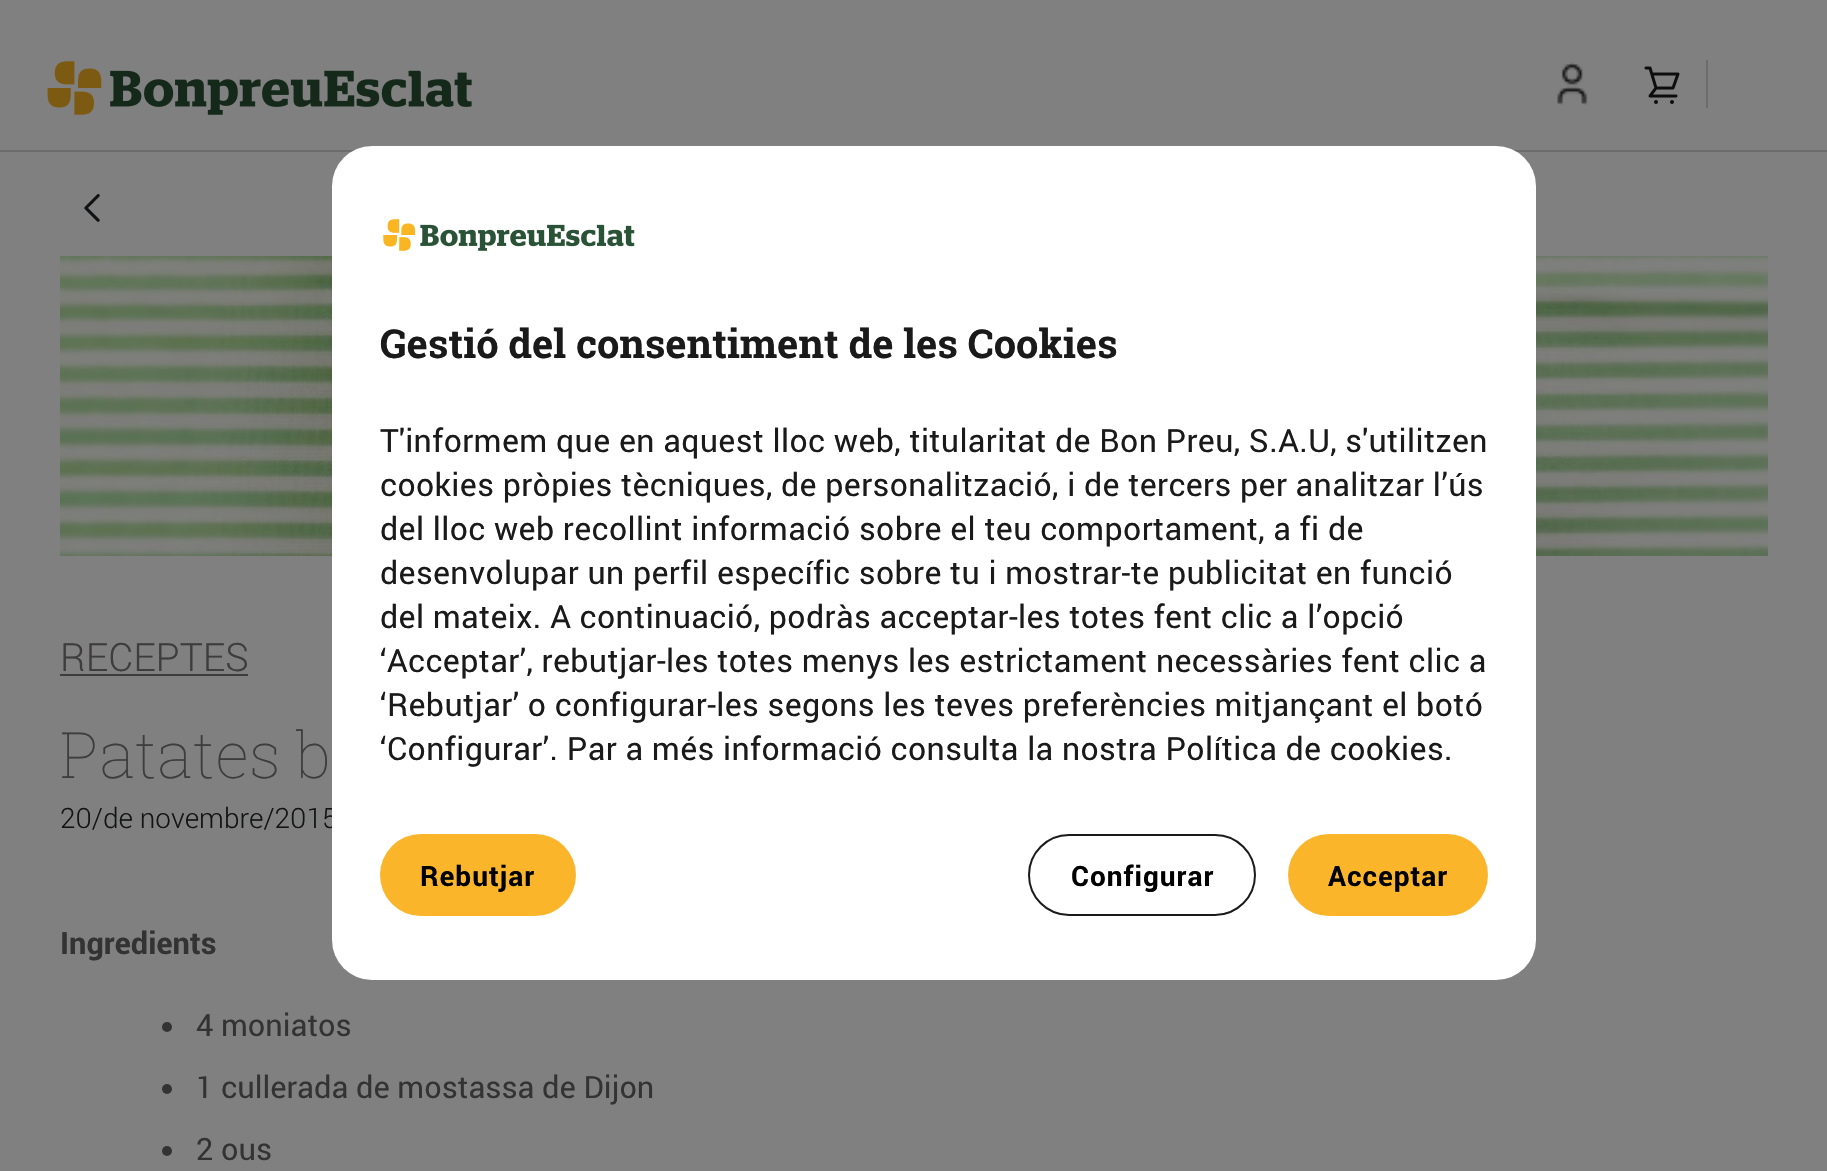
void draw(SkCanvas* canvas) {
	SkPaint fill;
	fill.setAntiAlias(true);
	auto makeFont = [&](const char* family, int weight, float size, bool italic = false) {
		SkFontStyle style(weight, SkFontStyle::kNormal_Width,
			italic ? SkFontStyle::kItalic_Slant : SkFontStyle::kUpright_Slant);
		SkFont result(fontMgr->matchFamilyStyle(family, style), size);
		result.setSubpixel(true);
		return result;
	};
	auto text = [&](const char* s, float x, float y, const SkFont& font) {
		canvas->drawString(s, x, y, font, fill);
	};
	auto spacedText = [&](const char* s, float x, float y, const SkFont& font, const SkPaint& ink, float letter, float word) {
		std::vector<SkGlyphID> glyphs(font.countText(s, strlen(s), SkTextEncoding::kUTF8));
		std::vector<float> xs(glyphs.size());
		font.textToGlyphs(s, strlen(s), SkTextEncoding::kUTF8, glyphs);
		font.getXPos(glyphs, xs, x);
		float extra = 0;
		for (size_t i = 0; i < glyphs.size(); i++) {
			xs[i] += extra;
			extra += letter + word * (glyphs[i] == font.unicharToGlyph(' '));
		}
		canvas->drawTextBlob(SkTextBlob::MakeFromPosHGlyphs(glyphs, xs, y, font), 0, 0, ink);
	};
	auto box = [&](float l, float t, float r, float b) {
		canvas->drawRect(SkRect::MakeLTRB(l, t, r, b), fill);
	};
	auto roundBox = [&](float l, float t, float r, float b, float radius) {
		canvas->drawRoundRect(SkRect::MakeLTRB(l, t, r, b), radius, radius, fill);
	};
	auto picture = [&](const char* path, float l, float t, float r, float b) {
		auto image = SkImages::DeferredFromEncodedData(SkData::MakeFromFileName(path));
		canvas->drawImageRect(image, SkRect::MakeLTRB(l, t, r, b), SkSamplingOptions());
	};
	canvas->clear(0xFF808080);
	fill.setColor(0xFF6C6C6C);
	box(0, 150, 1827, 152);
	picture("image0.png", 47, 61, 472, 115);
	picture("image1.png", 1557, 62, 1588, 106);
	picture("image2.png", 1644, 66, 1680, 104);
	box(1706, 60, 1708, 108);
	picture("image3.png", 84, 194, 100, 222);
	picture("image4.png", 60, 256, 1768, 556);
	fill.setColor(0xFF3E3C3C);
	box(60, 674, 248, 676);
	fill.setColor(0xFF333333);
	canvas->drawCircle(167, 1027, 5, fill);
	canvas->drawCircle(167, 1089, 5, fill);
	canvas->drawCircle(167, 1151, 5, fill);
	auto font1 = makeFont("Roboto", 300, 39);
	fill.setColor(0xFF3E3C3C);
	text("RECEPTES", 60, 671, font1);
	auto font2 = makeFont("Roboto Slab", 100, 64);
	text("Patates b", 60, 778, font2);
	auto font3 = makeFont("Roboto", 300, 28);
	fill.setColor(0xFF111315);
	text("20/de novembre/2015", 60, 828, font3);
	auto font4 = makeFont("Roboto", 700, 30.75f);
	fill.setColor(0xFF333333);
	text("Ingredients", 60, 954, font4);
	auto font5 = makeFont("Roboto", 400, 30.75f);
	text("4 moniatos", 196, 1036, font5);
	text("1 cullerada de mostassa de Dijon", 196, 1098, font5);
	text("2 ous", 196, 1160, font5);
	fill.setColor(0xFFFFFFFF);
	roundBox(332, 146, 1536, 980, 40);
	picture("image5.png", 383, 219, 635, 251);
	auto font6 = makeFont("Roboto Slab", 700, 40);
	fill.setColor(0xFF1A1A1A);
	text("Gestió del consentiment de les Cookies", 380, 358, font6);
	auto font7 = makeFont("Roboto", 400, 32);
	spacedText("T'informem que en aquest lloc web, titularitat de Bon Preu, S.A.U, s'utilitzen", 380, 452, font7, fill, 0.4f, 0);
	spacedText("cookies pròpies tècniques, de personalització, i de tercers per analitzar l’ús", 380, 496, font7, fill, 0.4f, 0);
	spacedText("del lloc web recollint informació sobre el teu comportament, a fi de", 380, 540, font7, fill, 0.4f, 0);
	spacedText("desenvolupar un perfil específic sobre tu i mostrar-te publicitat en funció", 380, 584, font7, fill, 0.4f, 0);
	spacedText("del mateix. A continuació, podràs acceptar-les totes fent clic a l’opció", 380, 628, font7, fill, 0.4f, 0);
	spacedText("‘Acceptar’, rebutjar-les totes menys les estrictament necessàries fent clic a", 380, 672, font7, fill, 0.4f, 0);
	spacedText("‘Rebutjar’ o configurar-les segons les teves preferències mitjançant el botó", 380, 716, font7, fill, 0.4f, 0);
	spacedText("‘Configurar’. Par a més informació consulta la nostra Política de cookies.", 380, 760, font7, fill, 0.4f, 0);
	fill.setColor(0xFFFAB52A);
	roundBox(380, 834, 576, 916, 41);
	auto font8 = makeFont("Roboto", 700, 28);
	fill.setColor(0xFF000000);
	spacedText("Rebutjar", 420, 886, font8, fill, 1, 0);
	fill.setStyle(SkPaint::kStroke_Style);
	fill.setStrokeWidth(2);
	fill.setColor(0xFF1A1A1A);
	canvas->drawRoundRect(SkRect::MakeLTRB(1029, 835, 1255, 915), 40, 40, fill);
	fill.setStyle(SkPaint::kFill_Style);
	fill.setColor(0xFF000000);
	spacedText("Configurar", 1071, 886, font8, fill, 1, 0);
	fill.setColor(0xFFFAB52A);
	roundBox(1288, 834, 1488, 916, 41);
	fill.setColor(0xFF000000);
	spacedText("Acceptar", 1328, 886, font8, fill, 1, 0);
}
